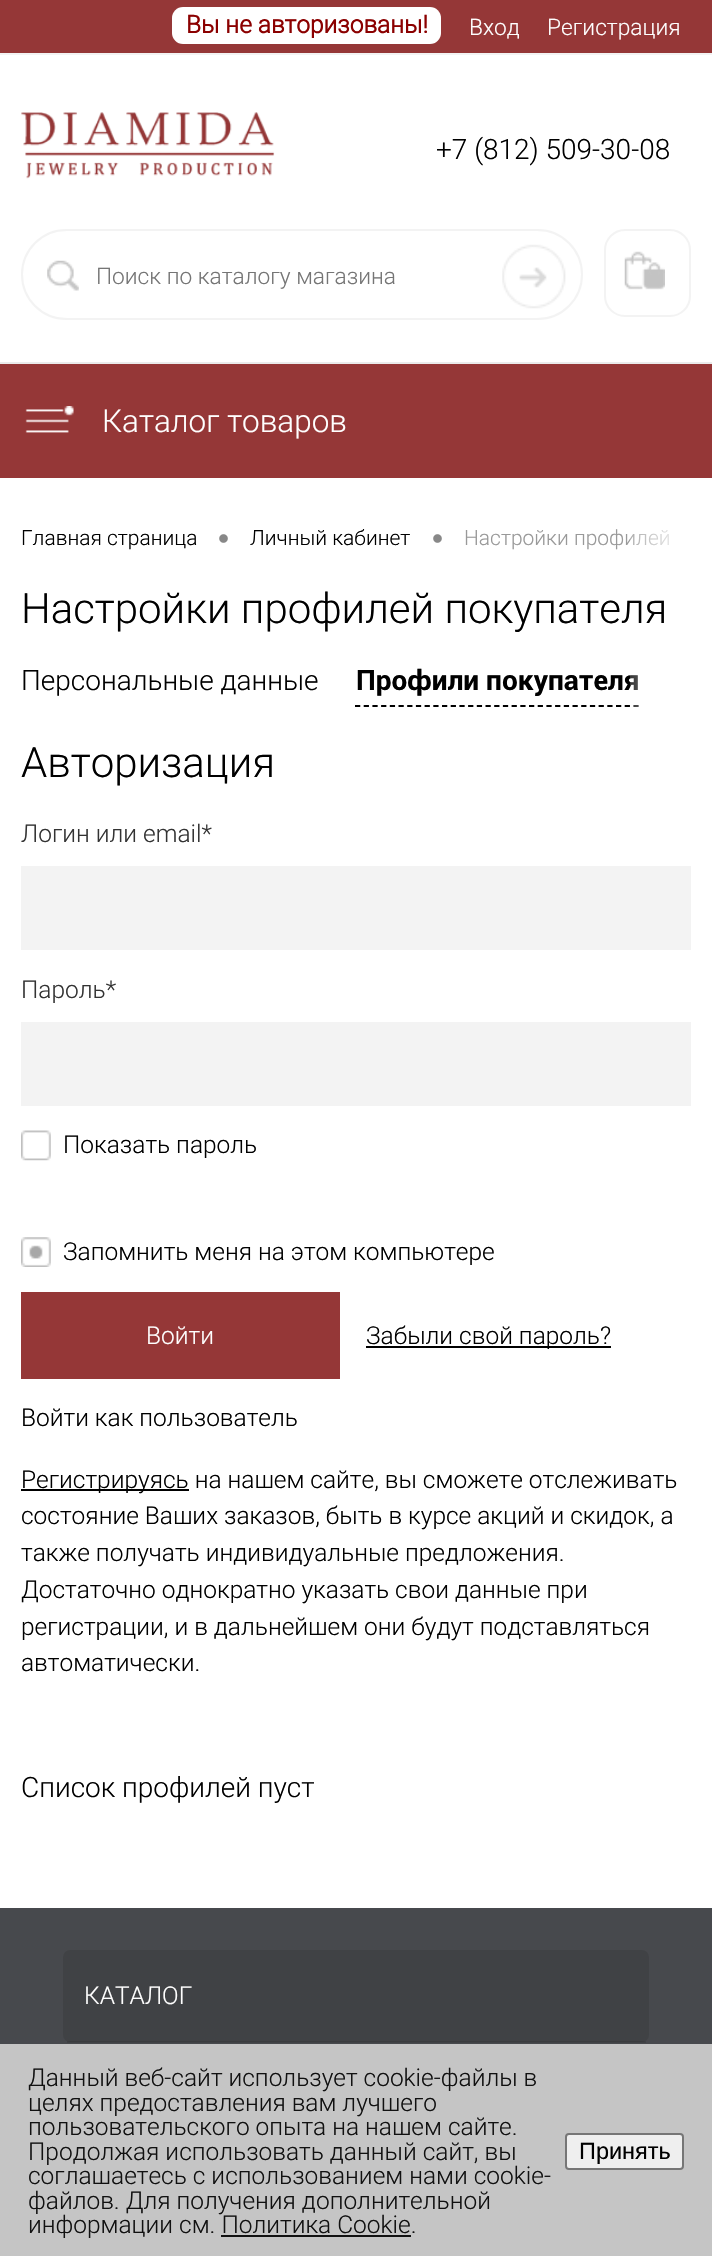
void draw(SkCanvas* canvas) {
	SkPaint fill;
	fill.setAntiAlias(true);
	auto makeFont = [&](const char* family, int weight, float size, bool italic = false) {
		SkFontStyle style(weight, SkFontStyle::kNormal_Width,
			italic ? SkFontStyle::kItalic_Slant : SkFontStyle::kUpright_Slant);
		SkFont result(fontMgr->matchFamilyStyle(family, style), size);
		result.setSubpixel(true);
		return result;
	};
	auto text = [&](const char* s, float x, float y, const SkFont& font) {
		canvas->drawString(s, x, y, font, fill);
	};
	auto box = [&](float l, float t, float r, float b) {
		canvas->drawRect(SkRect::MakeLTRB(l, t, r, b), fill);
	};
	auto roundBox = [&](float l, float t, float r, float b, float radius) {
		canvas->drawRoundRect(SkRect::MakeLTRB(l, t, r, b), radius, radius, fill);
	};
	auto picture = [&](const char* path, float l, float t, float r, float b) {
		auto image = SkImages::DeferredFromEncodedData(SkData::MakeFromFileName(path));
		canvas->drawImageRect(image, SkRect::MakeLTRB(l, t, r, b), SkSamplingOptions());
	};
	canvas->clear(0xFFFFFFFF);
	fill.setColor(0xFF953737);
	box(0, 0, 712, 53);
	fill.setColor(0xFFFFFFFF);
	roundBox(172, 7, 441, 44, 11);
	fill.setColor(0xFFF3F3F3);
	box(0, 53, 712, 55);
	fill.setColor(0xFFEAEAEA);
	box(0, 362, 712, 364);
	picture("image0.png", 21, 112, 275, 179);
	fill.setStyle(SkPaint::kStroke_Style);
	fill.setStrokeWidth(2);
	fill.setColor(0xFFF3F3F3);
	canvas->drawRoundRect(SkRect::MakeLTRB(22, 230, 582, 319), 44.5f, 44.5f, fill);
	picture("image1.png", 47, 260, 79, 291);
	picture("image2.png", 502, 244, 566, 309);
	canvas->drawRoundRect(SkRect::MakeLTRB(605, 230, 690, 316), 20, 20, fill);
	picture("image3.png", 624, 251, 665, 290);
	fill.setStyle(SkPaint::kFill_Style);
	fill.setColor(0xFF953737);
	box(0, 364, 712, 478);
	picture("image4.png", 25, 406, 74, 433);
	fill.setStyle(SkPaint::kStroke_Style);
	fill.setStrokeWidth(1.8f);
	fill.setColor(0xFF000000);
	fill.setPathEffect(SkDashPathEffect::Make({{5.25f, 3.45f}}, 0));
	canvas->drawPath(SkPathBuilder().moveTo(355, 706).lineTo(639, 706).detach(), fill);
	fill.setPathEffect(nullptr);
	fill.setStyle(SkPaint::kFill_Style);
	fill.setColor(0xFFF3F3F3);
	box(21, 866, 691, 950);
	box(21, 1022, 691, 1106);
	picture("image5.png", 21, 1130, 51, 1161);
	picture("image6.png", 21, 1237, 51, 1267);
	fill.setColor(0xFF953737);
	box(21, 1292, 340, 1379);
	fill.setColor(0xFF000000);
	box(366, 1346, 611, 1348);
	box(21, 1489, 189, 1491);
	fill.setColor(0xFF47494D);
	box(0, 1908, 712, 2044);
	fill.setColor(0xFF404245);
	roundBox(63, 1950, 649, 2042, 7);
	fill.setColor(0x1A000000);
	box(67, 2041, 646, 2043);
	fill.setColor(0xFFC5C5C5);
	box(0, 2044, 712, 2256);
	fill.setColor(0xFF111111);
	box(221, 2235, 411, 2237);
	fill.setColor(0xFFEFEFEF);
	canvas->drawRoundRect(SkRect::MakeLTRB(566, 2134, 683, 2169), 3, 3, fill);
	fill.setStyle(SkPaint::kStroke_Style);
	fill.setStrokeWidth(2);
	fill.setColor(0xFF767676);
	canvas->drawRoundRect(SkRect::MakeLTRB(566, 2134, 683, 2169), 3, 3, fill);
	auto font1 = makeFont("Roboto", 700, 24.5f);
	fill.setStyle(SkPaint::kFill_Style);
	fill.setColor(0xFF8B0000);
	text("Вы не авторизованы!", 186, 33, font1);
	auto font2 = makeFont("Roboto", 300, 22.75f);
	fill.setColor(0xFFFFFFFF);
	text("Вход", 469, 35, font2);
	text("Регистрация", 547, 35, font2);
	auto font3 = makeFont("Roboto", 300, 28);
	fill.setColor(0xFF000000);
	text("+7 (812) 509-30-08", 436, 159, font3);
	fill.setColor(0xFF757575);
	text("Поиск по каталогу магазина", 96, 284, font2);
	auto font4 = makeFont("Roboto", 300, 31.5f);
	fill.setColor(0xFFFFFFFF);
	text("Каталог товаров", 102, 432, font4);
	auto font5 = makeFont("Roboto", 300, 21);
	fill.setColor(0xFF000000);
	text("Главная страница", 21, 545, font5);
	auto font6 = makeFont("Liberation Sans", 400, 31.5f);
	fill.setColor(0xFF888888);
	text("•", 218, 549, font6);
	fill.setColor(0xFF000000);
	text("Личный кабинет", 250, 545, font5);
	fill.setColor(0xFF888888);
	text("•", 432, 549, font6);
	fill.setColor(0xFF999999);
	text("Настройки профилей", 464, 545, font5);
	{
		const SkColor colors[] = {0x33FFFFFF, 0xFFFFFFFF};
		const float stops[] = {0, 1};
		const SkPoint ends[] = {{630, 538}, {691, 538}};
		fill.setShader(SkGradientShader::MakeLinear(ends, colors, stops, 2, SkTileMode::kClamp));
		fill.setAlpha(255);
	}
	box(630, 529, 669, 546);
	auto font7 = makeFont("Roboto", 300, 42);
	fill.setShader(nullptr);
	fill.setColor(0xFF000000);
	text("Настройки профилей покупателя", 21, 623, font7);
	text("Персональные данные", 21, 690, font3);
	auto font8 = makeFont("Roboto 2", 700, 28);
	text("Профили покупателя", 356, 690, font8);
	{
		const SkColor colors[] = {0x33FFFFFF, 0xFFFFFFFF};
		const float stops[] = {0, 1};
		const SkPoint ends[] = {{630, 697}, {691, 697}};
		fill.setShader(SkGradientShader::MakeLinear(ends, colors, stops, 2, SkTileMode::kClamp));
		fill.setAlpha(255);
	}
	box(630, 675, 639, 707);
	fill.setShader(nullptr);
	fill.setColor(0xFF000000);
	text("Авторизация", 21, 777, font7);
	auto font9 = makeFont("Roboto", 300, 24.5f);
	fill.setColor(0xFF333333);
	text("Логин или email*", 21, 842, font9);
	text("Пароль*", 21, 998, font9);
	fill.setColor(0xFF000000);
	text("Показать пароль", 63, 1153, font9);
	text("Запомнить меня на этом компьютере", 63, 1260, font9);
	fill.setColor(0xFFFFFFFF);
	text("Войти", 146, 1344, font9);
	fill.setColor(0xFF000000);
	text("Забыли свой пароль?", 366, 1344, font9);
	text("Войти как пользователь", 21, 1426, font9);
	text("Регистрируясь на нашем сайте, вы сможете отслеживать", 21, 1488, font9);
	text("состояние Ваших заказов, быть в курсе акций и скидок, а", 21, 1524, font9);
	text("также получать индивидуальные предложения.", 21, 1561, font9);
	text("Достаточно однократно указать свои данные при", 21, 1598, font9);
	text("регистрации, и в дальнейшем они будут подставляться", 21, 1635, font9);
	text("автоматически.", 21, 1671, font9);
	text("Список профилей пуст", 21, 1797, font3);
	fill.setColor(0xFFFFFFFF);
	text("КАТАЛОГ", 84, 2004, font9);
	fill.setColor(0xFF111111);
	text("Данный веб-сайт использует cookie-файлы в", 28, 2086, font9);
	text("целях предоставления вам лучшего", 28, 2111, font9);
	text("пользовательского опыта на нашем сайте.", 28, 2135, font9);
	text("Продолжая использовать данный сайт, вы", 28, 2160, font9);
	text("соглашаетесь с использованием нами cookie-", 28, 2184, font9);
	text("файлов. Для получения дополнительной", 28, 2209, font9);
	text("информации см. Политика Cookie.", 28, 2233, font9);
	auto font10 = makeFont("Liberation Sans", 400, 23.5f);
	fill.setColor(0xFF000000);
	text("Принять", 579, 2159, font10);
}
